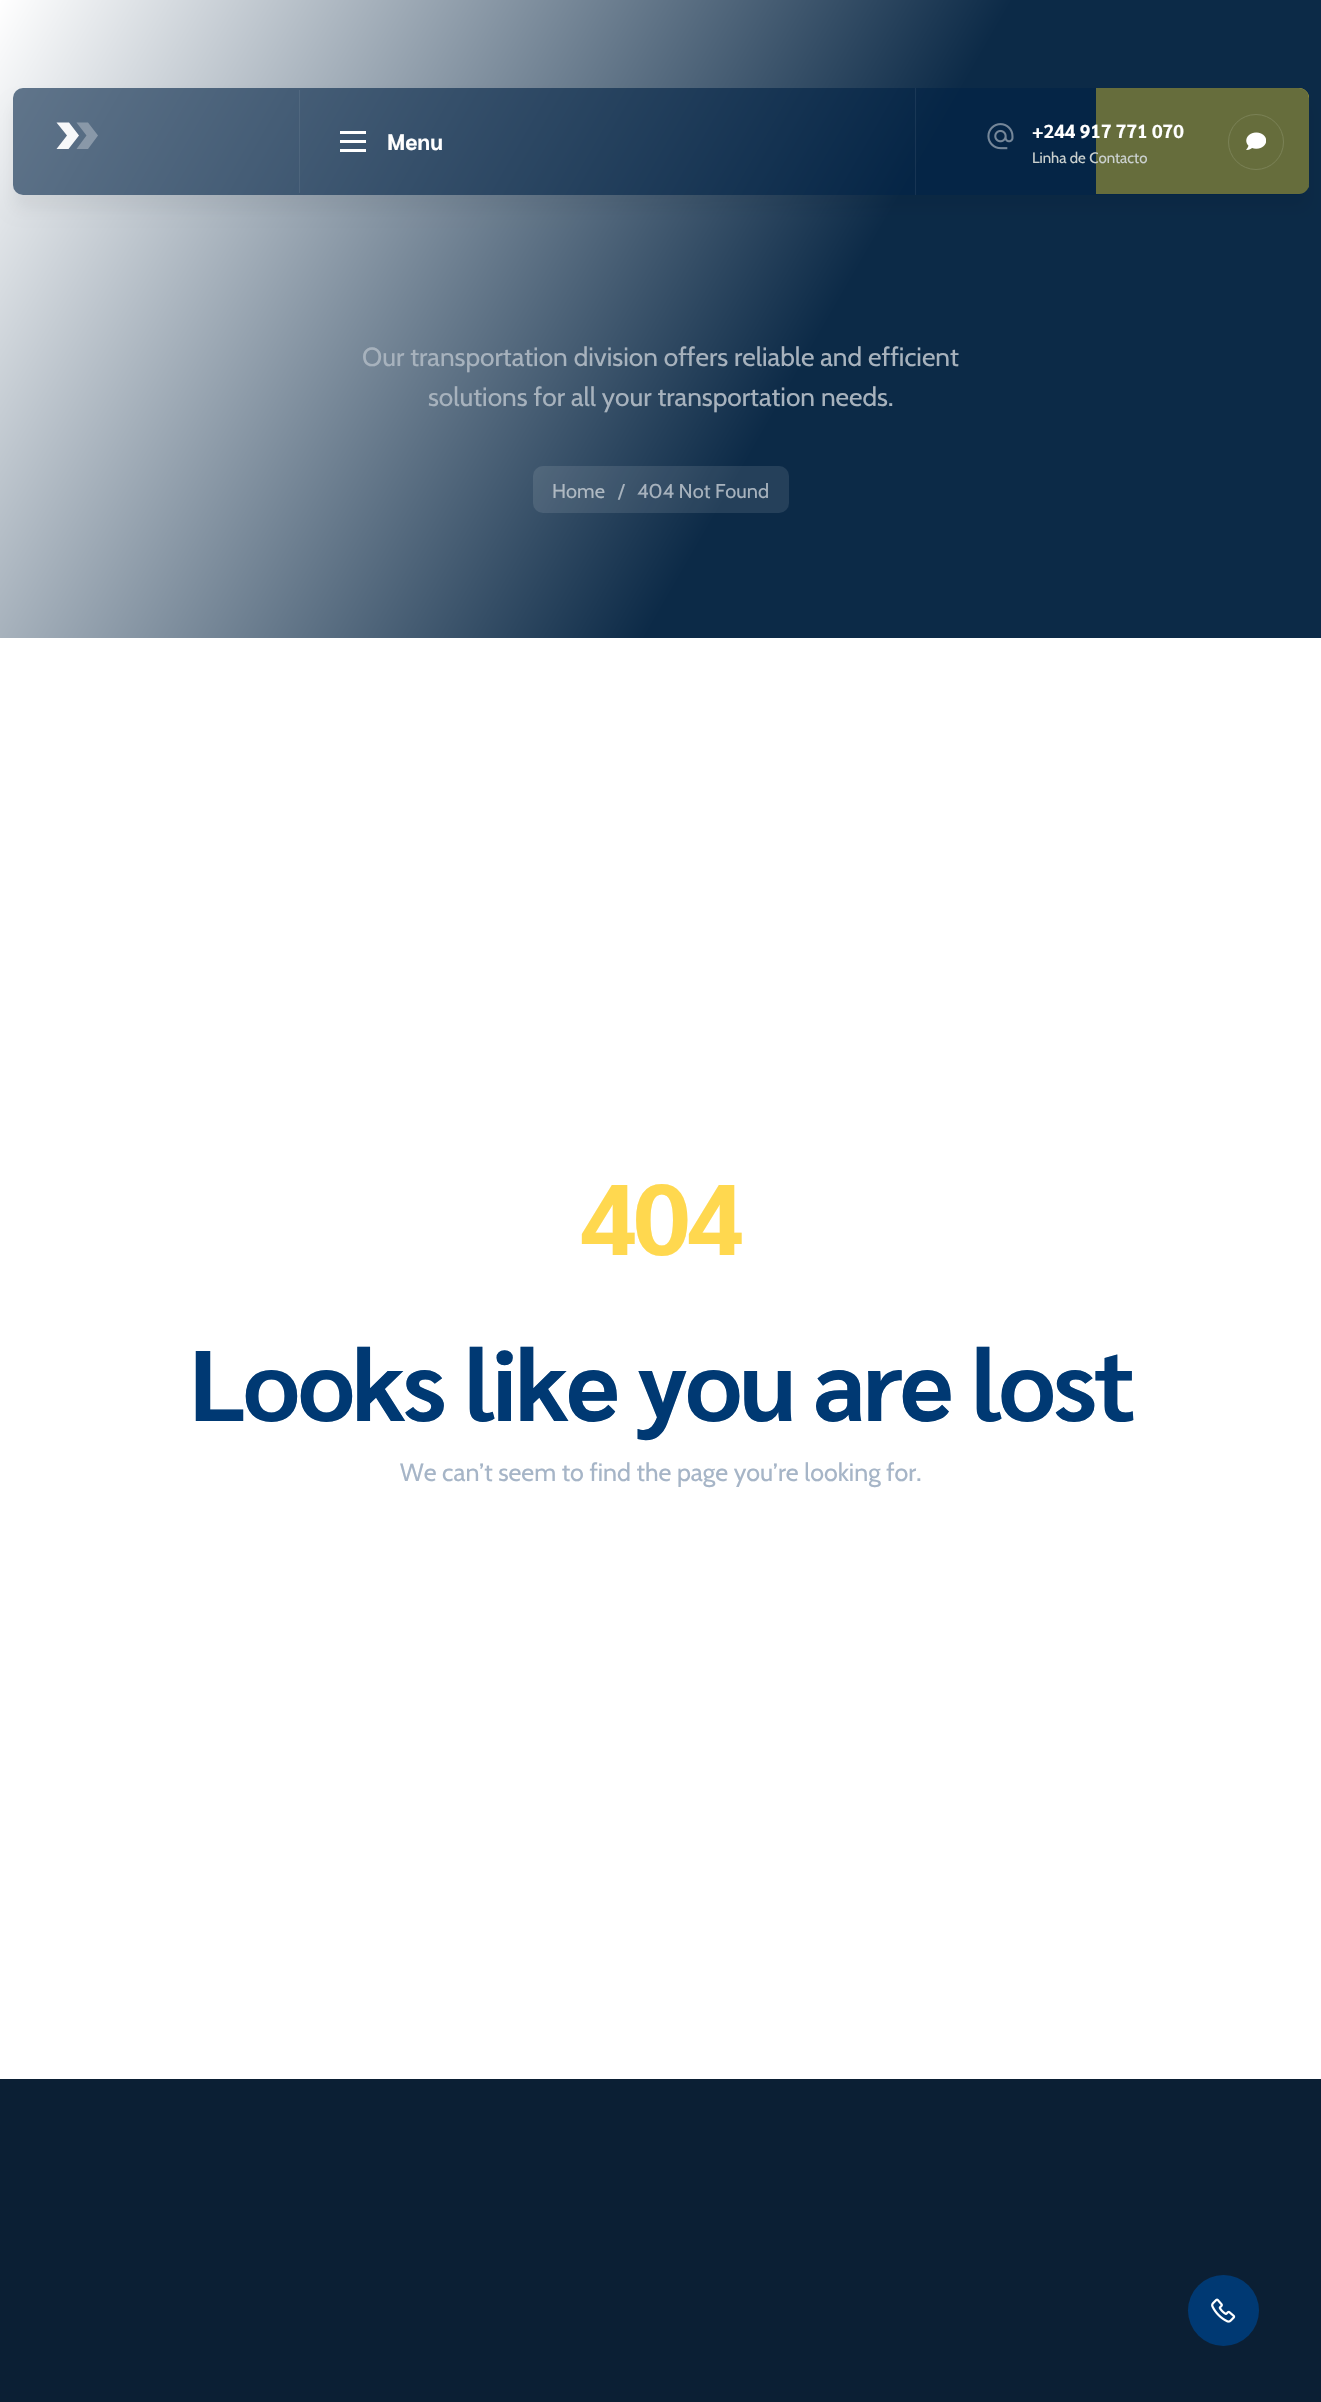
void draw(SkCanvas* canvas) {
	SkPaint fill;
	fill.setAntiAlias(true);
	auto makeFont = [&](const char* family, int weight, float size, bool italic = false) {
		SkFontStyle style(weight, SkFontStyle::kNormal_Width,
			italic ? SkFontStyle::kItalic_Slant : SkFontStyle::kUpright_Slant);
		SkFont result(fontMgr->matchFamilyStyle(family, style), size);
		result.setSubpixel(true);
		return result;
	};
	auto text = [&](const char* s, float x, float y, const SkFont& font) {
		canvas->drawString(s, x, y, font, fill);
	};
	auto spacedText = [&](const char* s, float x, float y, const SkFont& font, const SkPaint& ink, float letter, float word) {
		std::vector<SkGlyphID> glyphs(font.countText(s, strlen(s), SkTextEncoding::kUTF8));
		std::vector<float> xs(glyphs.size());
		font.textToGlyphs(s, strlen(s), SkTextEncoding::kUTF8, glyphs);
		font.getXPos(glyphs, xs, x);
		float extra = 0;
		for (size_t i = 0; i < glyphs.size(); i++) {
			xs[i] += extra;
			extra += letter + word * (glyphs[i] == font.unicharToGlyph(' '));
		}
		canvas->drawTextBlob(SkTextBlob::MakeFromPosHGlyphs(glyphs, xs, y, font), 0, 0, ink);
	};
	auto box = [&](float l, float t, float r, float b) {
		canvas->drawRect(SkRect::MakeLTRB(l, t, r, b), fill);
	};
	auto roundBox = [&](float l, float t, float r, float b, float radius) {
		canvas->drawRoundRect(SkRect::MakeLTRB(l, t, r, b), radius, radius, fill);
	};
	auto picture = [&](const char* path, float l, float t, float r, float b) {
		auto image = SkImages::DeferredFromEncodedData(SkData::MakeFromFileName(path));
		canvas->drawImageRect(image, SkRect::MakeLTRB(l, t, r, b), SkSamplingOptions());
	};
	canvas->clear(0xFFFFFFFF);
	{
		const SkColor colors[] = {0xFF0C2A47, 0xFFFFFFFF};
		const float stops[] = {0.4f, 1};
		const SkPoint ends[] = {{1294, 684}, {27, -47}};
		fill.setShader(SkGradientShader::MakeLinear(ends, colors, stops, 2, SkTileMode::kClamp));
		fill.setAlpha(255);
	}
	box(0, 0, 1321, 638);
	fill.setShader(nullptr);
	fill.setColor(0xFFFFDF2F);
	canvas->drawPath(SkPathBuilder().moveTo(1096, 88).lineTo(1299, 88).cubicTo(1304.5f, 88, 1309, 92.5f, 1309, 98).lineTo(1309, 184).cubicTo(1309, 189.5f, 1304.5f, 194, 1299, 194).lineTo(1096, 194).close().detach(), fill);
	canvas->save();
	canvas->clipPath(SkPathBuilder(SkPathFillType::kEvenOdd).moveTo(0, 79).lineTo(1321, 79).lineTo(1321, 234).lineTo(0, 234).close().moveTo(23, 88).lineTo(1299, 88).cubicTo(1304.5f, 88, 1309, 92.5f, 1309, 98).lineTo(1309, 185).cubicTo(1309, 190.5f, 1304.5f, 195, 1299, 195).lineTo(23, 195).cubicTo(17.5f, 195, 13, 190.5f, 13, 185).lineTo(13, 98).cubicTo(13, 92.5f, 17.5f, 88, 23, 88).close().detach(), true);
	fill.setColor(0x0D000000);
	fill.setMaskFilter(SkMaskFilter::MakeBlur(kNormal_SkBlurStyle, 7.5f));
	canvas->drawRoundRect(SkRect::MakeLTRB(13, 103, 1309, 210), 10, 10, fill);
	fill.setMaskFilter(nullptr);
	canvas->restore();
	fill.setColor(0x99002244);
	roundBox(13, 88, 1309, 195, 10);
	fill.setColor(0xF2FFFFFF);
	canvas->drawPath(SkPathBuilder().moveTo(69, 122.5f).lineTo(56.5f, 122.5f).lineTo(67, 135.5f).lineTo(56.5f, 149).lineTo(68.5f, 149).lineTo(79, 135.5f).close().detach(), fill);
	fill.setColor(0xFF8998A8);
	canvas->drawPath(SkPathBuilder().moveTo(88, 122.5f).lineTo(76.5f, 122.5f).lineTo(86.5f, 135.5f).lineTo(76.5f, 149).lineTo(88, 149).lineTo(98, 135.5f).close().detach(), fill);
	fill.setColor(0x12FFFFFF);
	box(299, 90, 300, 193);
	fill.setColor(0xFFFFFFFF);
	box(340, 131, 366, 134);
	box(340, 140, 366, 143);
	box(340, 149, 366, 152);
	fill.setColor(0x12FFFFFF);
	box(915, 88, 916, 195);
	picture("image0.png", 987, 123, 1014, 150);
	fill.setStyle(SkPaint::kStroke_Style);
	fill.setStrokeWidth(1);
	fill.setColor(0xFF7A8155);
	canvas->drawCircle(1256, 142, 27.5f, fill);
	picture("image1.png", 1246, 132, 1266, 150);
	fill.setStyle(SkPaint::kFill_Style);
	fill.setColor(0xFF0B1F34);
	box(0, 2079, 1321, 2402);
	fill.setColor(0xFF003973);
	canvas->drawCircle(1223.5f, 2310.5f, 35.5f, fill);
	picture("image2.png", 1211, 2298, 1236, 2323);
	fill.setColor(0x1AFFFFFF);
	roundBox(533, 466, 789, 513, 10);
	auto font1 = makeFont("Sarabun", 700, 22.5f);
	fill.setColor(0xFFFFFFFF);
	text("Menu", 387, 150, font1);
	auto font2 = makeFont("Sarabun", 700, 18.75f);
	text("+244 917 771 070", 1032, 138, font2);
	auto font3 = makeFont("Cabin", 400, 15);
	fill.setColor(0xFFCBD1CF);
	text("Linha de Contacto", 1032, 163, font3);
	auto font4 = makeFont("Cabin", 400, 26.25f);
	fill.setColor(0xFFA7B2BD);
	text("Our transportation division offers reliable and efficient", 362, 366, font4);
	text("solutions for all your transportation needs.", 428, 406, font4);
	auto font5 = makeFont("Cabin", 400, 20);
	fill.setColor(0xFFAFB9C2);
	text("Home", 552, 498, font5);
	fill.setColor(0xFFA7B2BD);
	text("/", 618, 498, font5);
	text("404 Not Found", 637, 498, font5);
	auto font6 = makeFont("Sarabun", 700, 100);
	fill.setColor(0xFFFFD84F);
	spacedText("404", 580, 1255, font6, fill, -3, 0);
	fill.setColor(0xFF003973);
	spacedText("Looks like you are lost", 189, 1421, font6, fill, -3, 0);
	auto font7 = makeFont("Cabin", 400, 25);
	fill.setColor(0xFFA6B5C7);
	text("We can’t seem to find the page you’re looking for.", 400, 1481, font7);
}
